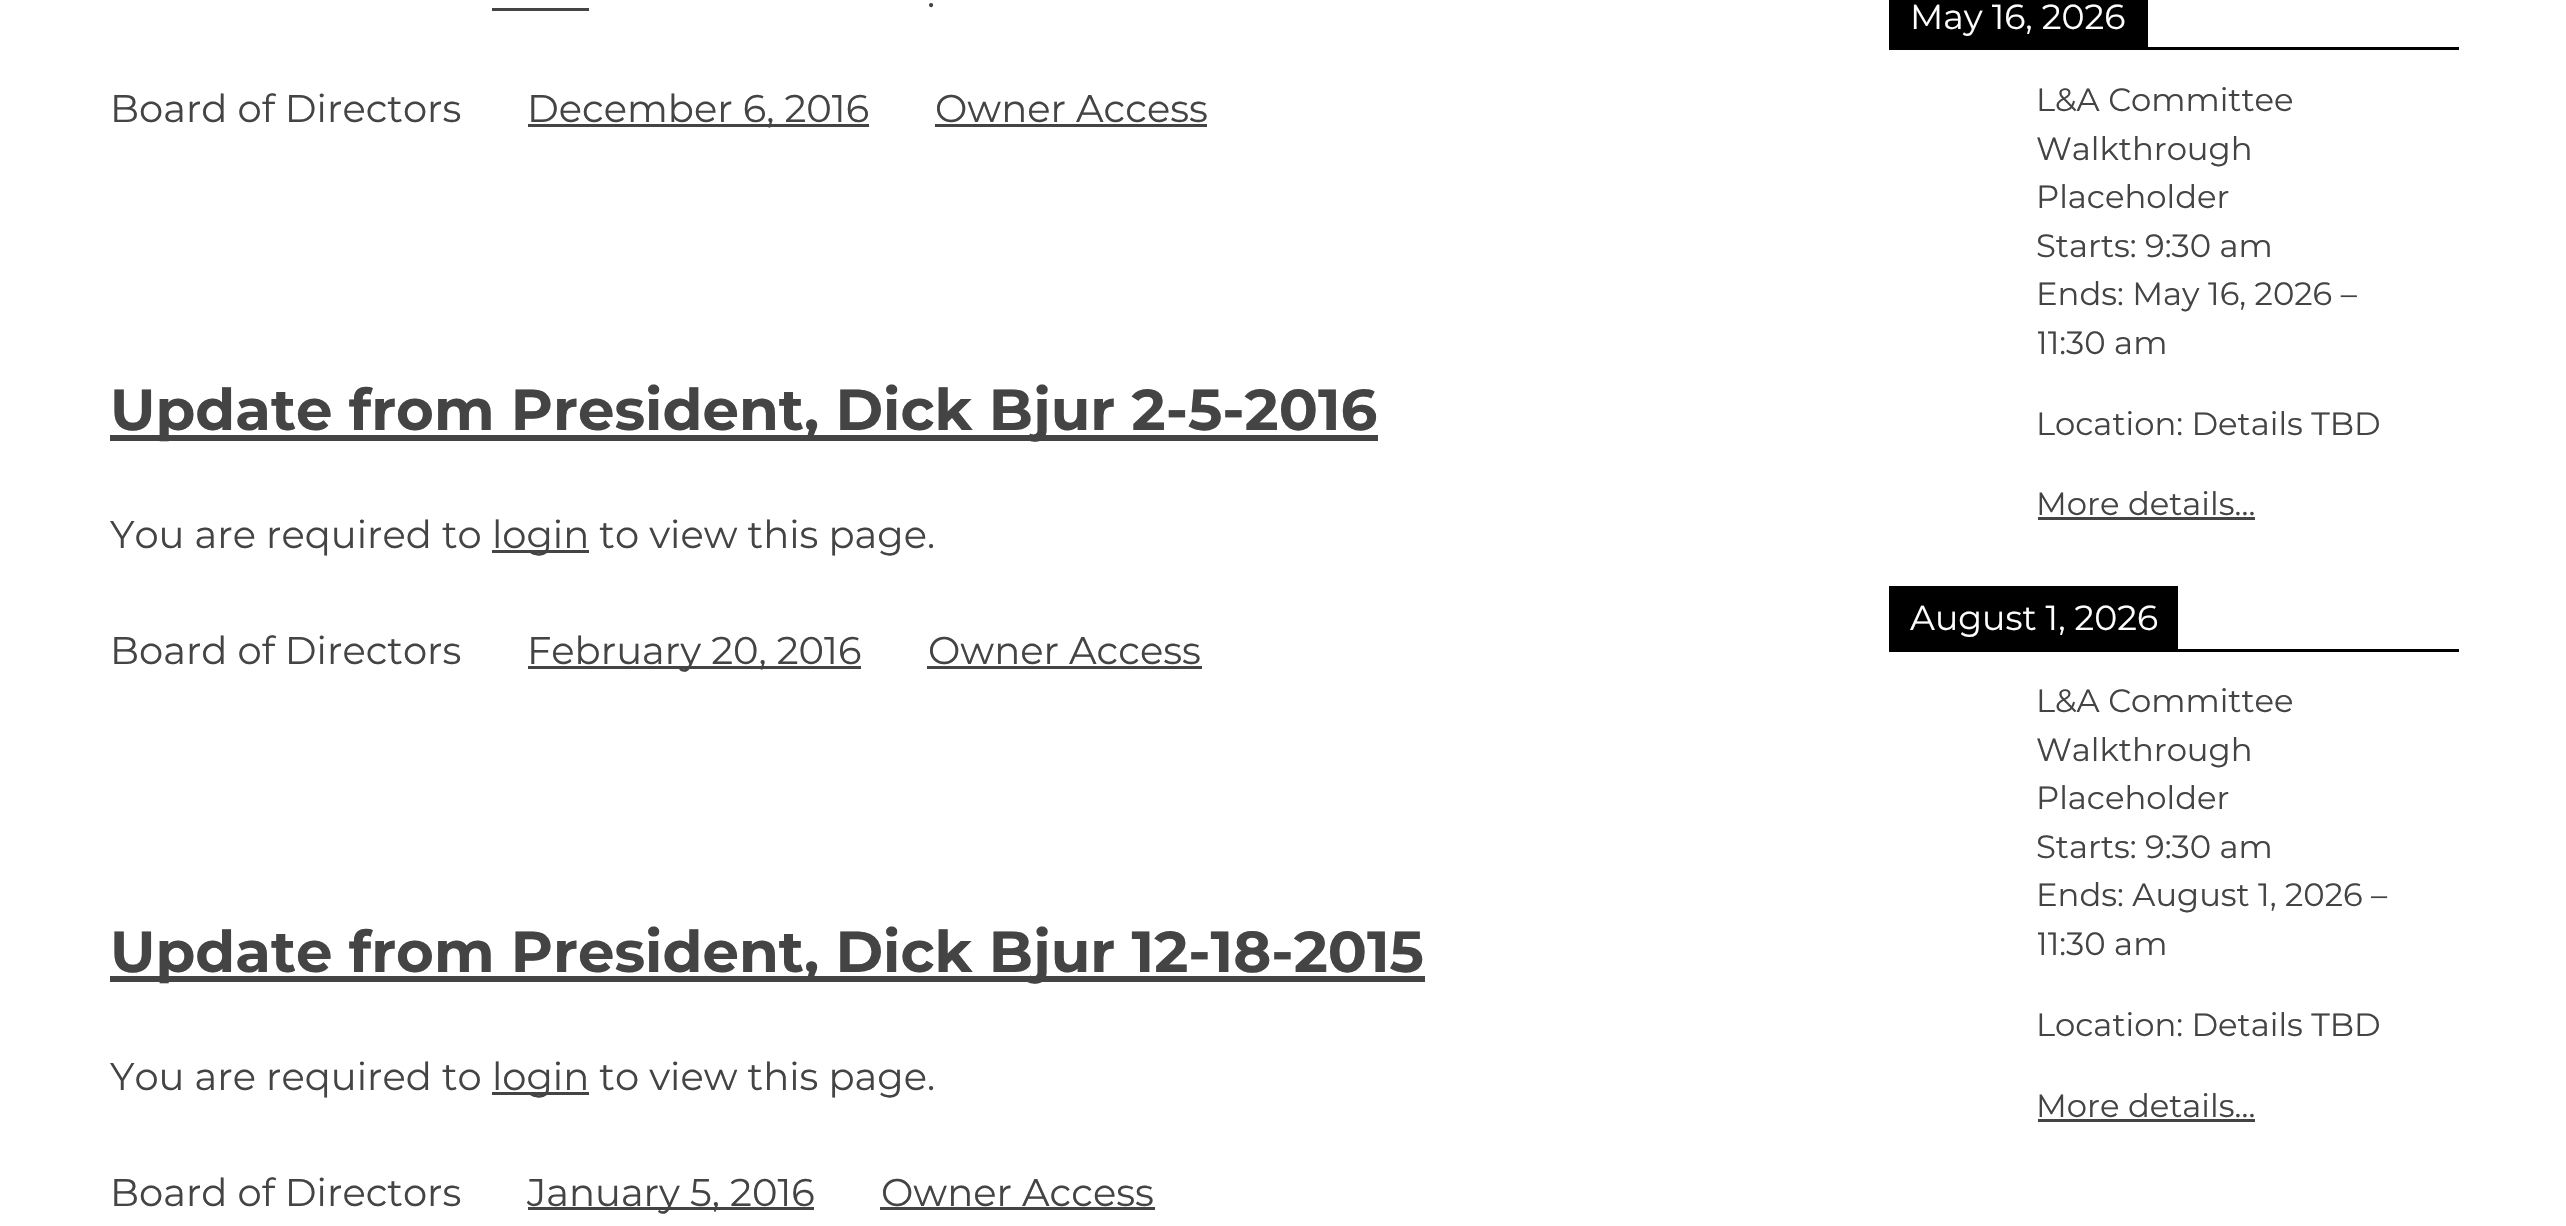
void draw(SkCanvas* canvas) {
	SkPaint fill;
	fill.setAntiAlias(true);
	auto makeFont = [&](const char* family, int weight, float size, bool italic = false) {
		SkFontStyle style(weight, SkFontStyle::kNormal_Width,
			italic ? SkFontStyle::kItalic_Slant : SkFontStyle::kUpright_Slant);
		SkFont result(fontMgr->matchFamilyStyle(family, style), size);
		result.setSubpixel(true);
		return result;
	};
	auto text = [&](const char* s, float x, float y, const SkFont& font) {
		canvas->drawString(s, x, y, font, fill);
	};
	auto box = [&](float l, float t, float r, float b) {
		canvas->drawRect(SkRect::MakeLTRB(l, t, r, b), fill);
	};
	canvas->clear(0xFFFFFFFF);
	fill.setColor(0xFF444444);
	box(492, 8, 589, 11);
	box(528, 124, 869, 127);
	box(935, 124, 1207, 127);
	box(110, 435, 1378, 441);
	box(492, 550, 589, 553);
	box(528, 666, 861, 669);
	box(927, 666, 1202, 669);
	box(110, 976, 1425, 982);
	box(492, 1092, 589, 1095);
	box(528, 1207, 814, 1210);
	box(880, 1207, 1155, 1210);
	fill.setColor(0xFF000000);
	box(1889, 47, 2459, 50);
	box(1889, 0, 2148, 47);
	fill.setColor(0xFF444444);
	box(2038, 517, 2255, 520);
	fill.setColor(0xFF000000);
	box(1889, 649, 2459, 652);
	box(1889, 586, 2178, 649);
	fill.setColor(0xFF444444);
	box(2038, 1119, 2255, 1122);
	auto font1 = makeFont("Montserrat", 400, 38.5f);
	text(".", 927, 7, font1);
	text("Board of Directors", 110, 122, font1);
	text("December 6, 2016", 527, 122, font1);
	text("Owner Access", 935, 122, font1);
	auto font2 = makeFont("Montserrat", 700, 57.75f);
	text("Update from President, Dick Bjur 2-5-2016", 110, 430, font2);
	text("You are required to", 110, 548, font1);
	text("login to view this page.", 492, 548, font1);
	text("Board of Directors", 110, 664, font1);
	text("February 20, 2016", 527, 664, font1);
	text("Owner Access", 928, 664, font1);
	text("Update from President, Dick Bjur 12-18-2015", 110, 972, font2);
	text("You are required to", 110, 1090, font1);
	text("login to view this page.", 492, 1090, font1);
	text("Board of Directors", 110, 1206, font1);
	text("January 5, 2016", 527, 1206, font1);
	text("Owner Access", 881, 1206, font1);
	auto font3 = makeFont("Montserrat", 400, 34.75f);
	fill.setColor(0xFFFFFFFF);
	text("May 16, 2026", 1910, 29, font3);
	auto font4 = makeFont("Montserrat", 400, 32.25f);
	fill.setColor(0xFF444444);
	text("L&A Committee", 2036, 111, font4);
	text("Walkthrough", 2036, 160, font4);
	text("Placeholder", 2036, 208, font4);
	text("Starts: 9:30 am", 2036, 257, font4);
	text("Ends: May 16, 2026 –", 2036, 305, font4);
	canvas->save();
	canvas->clipRect(SkRect::MakeLTRB(2038, 77, 2420, 531));
	text("11:30 am", 2036, 354, font4);
	canvas->restore();
	text("Location: Details TBD", 2036, 435, font4);
	text("More details…", 2036, 515, font4);
	fill.setColor(0xFFFFFFFF);
	text("August 1, 2026", 1910, 630, font3);
	fill.setColor(0xFF444444);
	text("L&A Committee", 2036, 712, font4);
	text("Walkthrough", 2036, 761, font4);
	text("Placeholder", 2036, 809, font4);
	text("Starts: 9:30 am", 2036, 858, font4);
	text("Ends: August 1, 2026 –", 2036, 906, font4);
	canvas->save();
	canvas->clipRect(SkRect::MakeLTRB(2038, 679, 2420, 1133));
	text("11:30 am", 2036, 955, font4);
	canvas->restore();
	text("Location: Details TBD", 2036, 1036, font4);
	text("More details…", 2036, 1117, font4);
}
